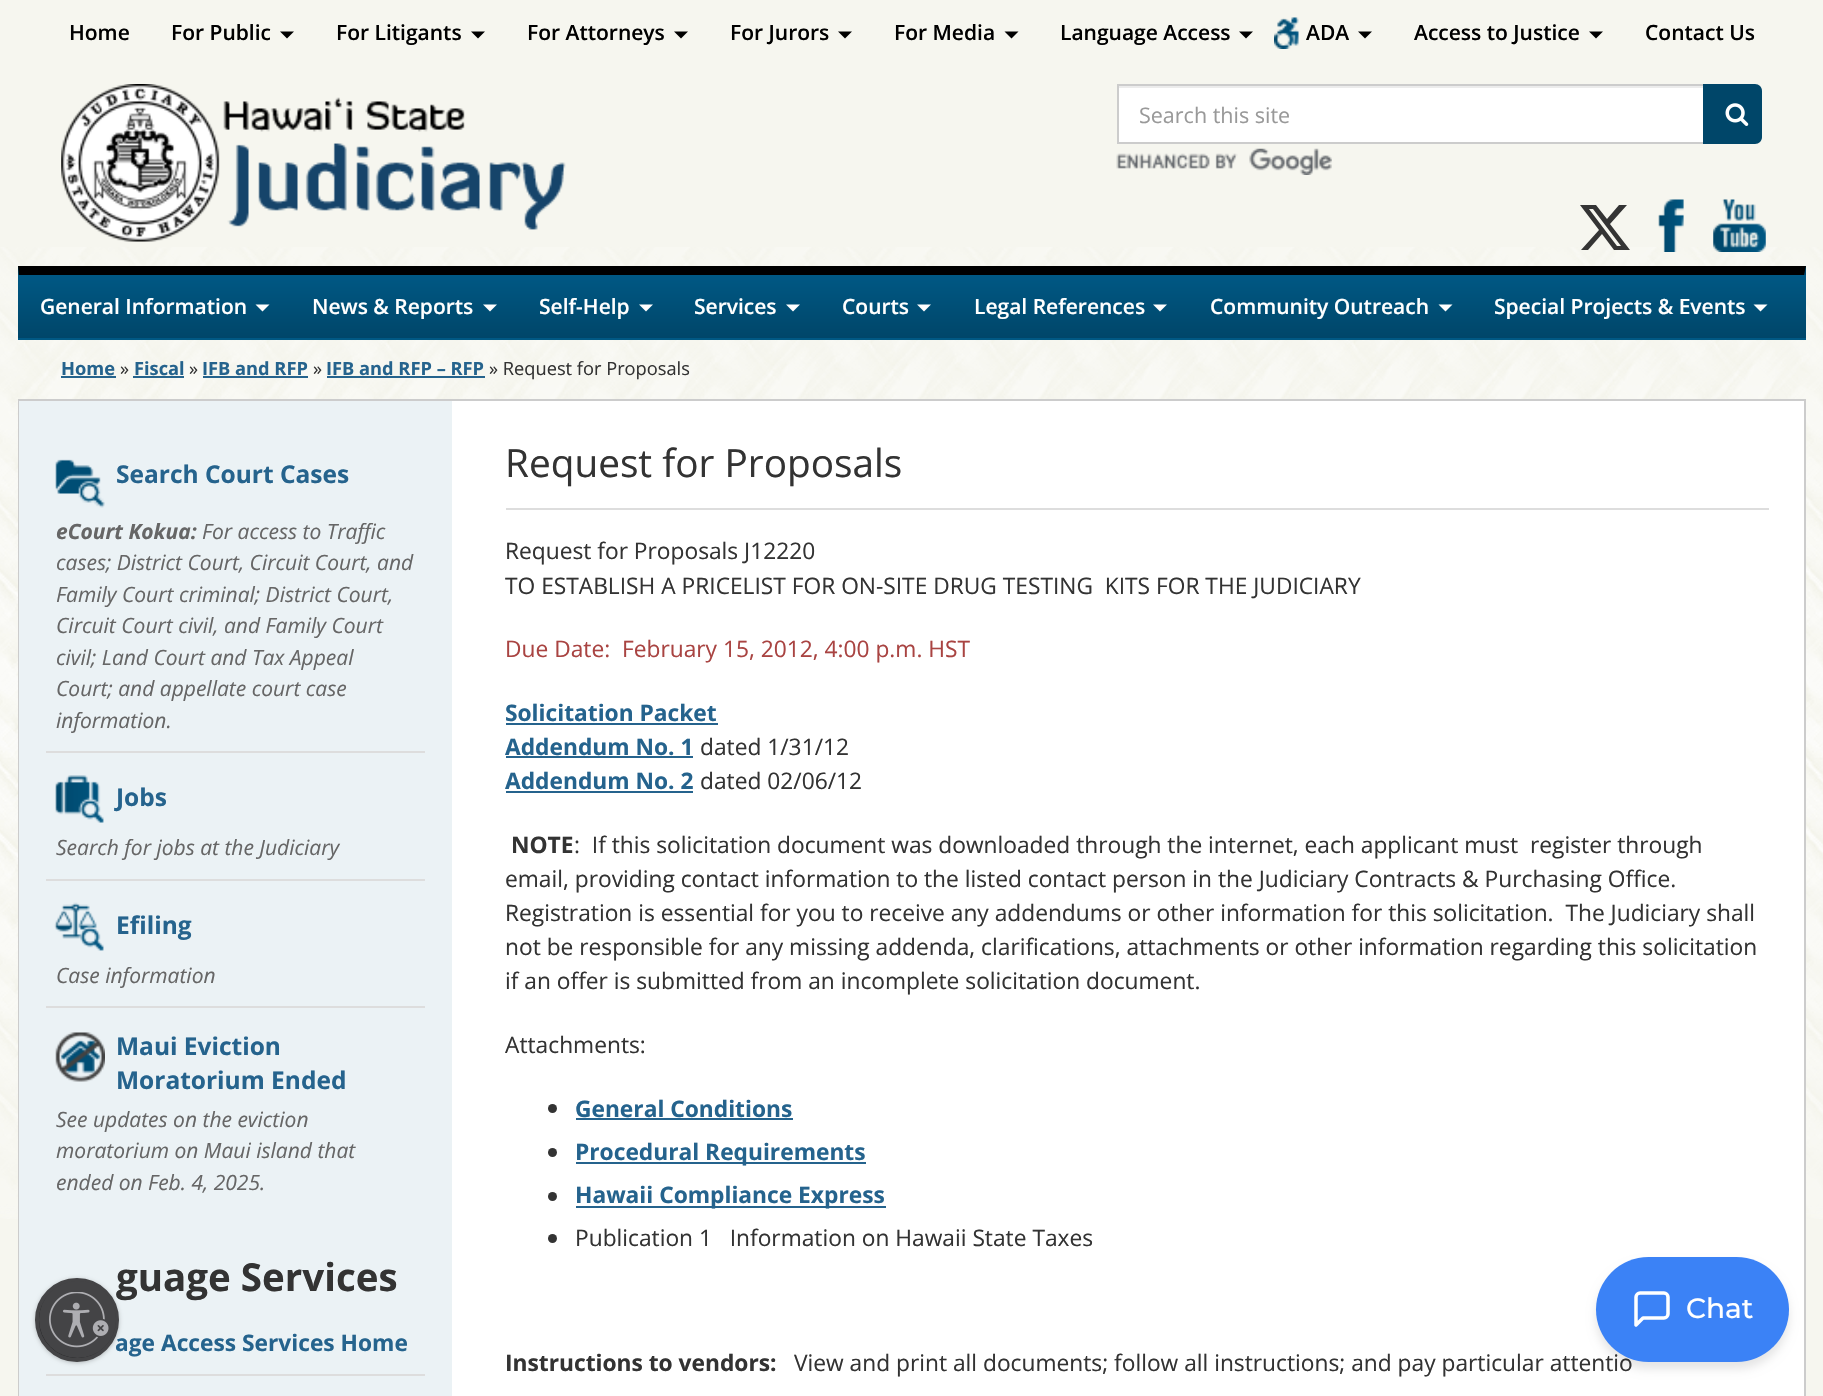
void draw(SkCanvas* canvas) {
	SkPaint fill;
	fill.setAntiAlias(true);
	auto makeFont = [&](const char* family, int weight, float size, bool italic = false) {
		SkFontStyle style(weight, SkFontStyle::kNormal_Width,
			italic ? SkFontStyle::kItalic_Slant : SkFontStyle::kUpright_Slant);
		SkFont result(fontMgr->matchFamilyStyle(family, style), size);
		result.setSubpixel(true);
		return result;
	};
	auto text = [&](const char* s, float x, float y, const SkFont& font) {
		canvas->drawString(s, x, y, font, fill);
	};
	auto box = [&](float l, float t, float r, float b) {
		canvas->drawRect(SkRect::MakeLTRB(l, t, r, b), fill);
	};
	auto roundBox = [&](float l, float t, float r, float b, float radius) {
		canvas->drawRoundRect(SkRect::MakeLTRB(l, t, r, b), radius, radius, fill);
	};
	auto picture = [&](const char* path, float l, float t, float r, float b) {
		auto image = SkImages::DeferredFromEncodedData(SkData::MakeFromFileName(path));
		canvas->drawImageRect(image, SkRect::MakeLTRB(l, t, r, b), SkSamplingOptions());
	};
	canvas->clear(0xFFF6F6EF);
	picture("image0.png", 0, 247, 1823, 1219);
	fill.setColor(0xFF000000);
	canvas->drawPath(SkPathBuilder().moveTo(280, 31.5f).lineTo(294, 31.5f).lineTo(287, 38.5f).close().detach(), fill);
	canvas->drawPath(SkPathBuilder().moveTo(471, 31.5f).lineTo(485, 31.5f).lineTo(478, 38.5f).close().detach(), fill);
	canvas->drawPath(SkPathBuilder().moveTo(674, 31.5f).lineTo(688, 31.5f).lineTo(681, 38.5f).close().detach(), fill);
	canvas->drawPath(SkPathBuilder().moveTo(838, 31.5f).lineTo(852, 31.5f).lineTo(845, 38.5f).close().detach(), fill);
	canvas->drawPath(SkPathBuilder().moveTo(1004.5f, 31.5f).lineTo(1018.5f, 31.5f).lineTo(1011.5f, 38.5f).close().detach(), fill);
	canvas->drawPath(SkPathBuilder().moveTo(1239, 31.5f).lineTo(1253, 31.5f).lineTo(1246, 38.5f).close().detach(), fill);
	picture("image1.png", 1274, 17, 1299, 49);
	canvas->drawPath(SkPathBuilder().moveTo(1358, 31.5f).lineTo(1372, 31.5f).lineTo(1365, 38.5f).close().detach(), fill);
	canvas->drawPath(SkPathBuilder().moveTo(1589, 31.5f).lineTo(1603, 31.5f).lineTo(1596, 38.5f).close().detach(), fill);
	picture("image2.png", 61, 84, 566, 242);
	fill.setColor(0xFFFFFFFF);
	box(1119, 88, 1703, 142);
	fill.setColor(0xFFECECEC);
	box(1118, 86, 1703, 88);
	fill.setStyle(SkPaint::kStroke_Style);
	fill.setStrokeWidth(2);
	fill.setColor(0xFFCCCCCC);
	canvas->drawRect(SkRect::MakeLTRB(1118, 85, 1704, 143), fill);
	fill.setStyle(SkPaint::kFill_Style);
	fill.setColor(0xFF004669);
	canvas->drawPath(SkPathBuilder().moveTo(1703, 84).lineTo(1755, 84).cubicTo(1759, 84, 1762, 87, 1762, 91).lineTo(1762, 137).cubicTo(1762, 141, 1759, 144, 1755, 144).lineTo(1703, 144).close().detach(), fill);
	picture("image3.png", 1725, 103, 1749, 126);
	picture("image4.png", 1116, 148, 1332, 175);
	fill.setColor(0xFF343434);
	canvas->drawPath(SkPathBuilder().moveTo(1619, 205).lineTo(1627, 205).lineTo(1610, 224).lineTo(1630, 250).lineTo(1614, 250).lineTo(1602, 234).lineTo(1588, 250).lineTo(1581, 250).lineTo(1599, 230).lineTo(1580, 205).lineTo(1596, 205).lineTo(1607, 219).close().moveTo(1617, 246).lineTo(1621, 246).lineTo(1593, 209).lineTo(1589, 209).close().detach(), fill);
	picture("image5.png", 1658, 199, 1684, 252);
	picture("image6.png", 1713, 199, 1766, 252);
	{
		const SkColor colors[] = {0xFF005884, 0xFF004669};
		const float stops[] = {0, 1};
		const SkPoint ends[] = {{912, 212}, {912, 275}};
		fill.setShader(SkGradientShader::MakeLinear(ends, colors, stops, 2, SkTileMode::kClamp));
		fill.setAlpha(255);
	}
	box(18, 266, 1806, 275);
	{
		const SkColor colors[] = {0xFF005884, 0xFF004669};
		const float stops[] = {0, 1};
		const SkPoint ends[] = {{912, 275}, {912, 338}};
		fill.setShader(SkGradientShader::MakeLinear(ends, colors, stops, 2, SkTileMode::kClamp));
		fill.setAlpha(255);
	}
	box(18, 275, 1806, 338);
	{
		const SkColor colors[] = {0xFF005884, 0xFF004669};
		const float stops[] = {0, 1};
		const SkPoint ends[] = {{912, 338}, {912, 401}};
		fill.setShader(SkGradientShader::MakeLinear(ends, colors, stops, 2, SkTileMode::kClamp));
		fill.setAlpha(255);
	}
	box(18, 338, 1806, 340);
	fill.setShader(nullptr);
	fill.setColor(0xFF000000);
	canvas->drawPath(SkPathBuilder().moveTo(18, 266).lineTo(1806, 266).lineTo(1804, 275).lineTo(19, 275).close().detach(), fill);
	fill.setColor(0xFFFFFFFF);
	canvas->drawPath(SkPathBuilder().moveTo(255.5f, 304.5f).lineTo(269.5f, 304.5f).lineTo(262.5f, 311.5f).close().detach(), fill);
	canvas->drawPath(SkPathBuilder().moveTo(483, 304.5f).lineTo(497, 304.5f).lineTo(490, 311.5f).close().detach(), fill);
	canvas->drawPath(SkPathBuilder().moveTo(639, 304.5f).lineTo(653, 304.5f).lineTo(646, 311.5f).close().detach(), fill);
	canvas->drawPath(SkPathBuilder().moveTo(786, 304.5f).lineTo(800, 304.5f).lineTo(793, 311.5f).close().detach(), fill);
	canvas->drawPath(SkPathBuilder().moveTo(917, 304.5f).lineTo(931, 304.5f).lineTo(924, 311.5f).close().detach(), fill);
	canvas->drawPath(SkPathBuilder().moveTo(1153, 304.5f).lineTo(1167, 304.5f).lineTo(1160, 311.5f).close().detach(), fill);
	canvas->drawPath(SkPathBuilder().moveTo(1438.5f, 304.5f).lineTo(1452.5f, 304.5f).lineTo(1445.5f, 311.5f).close().detach(), fill);
	canvas->drawPath(SkPathBuilder().moveTo(1753.5f, 304.5f).lineTo(1767.5f, 304.5f).lineTo(1760.5f, 311.5f).close().detach(), fill);
	fill.setColor(0xFF25638D);
	box(61, 376, 116, 378);
	box(133, 376, 184, 378);
	box(203, 376, 308, 378);
	box(327, 376, 485, 378);
	fill.setColor(0xFFFFFFFF);
	box(452, 401, 1804, 1396);
	fill.setStyle(SkPaint::kStroke_Style);
	fill.setColor(0xFFCCCCCC);
	canvas->drawRect(SkRect::MakeLTRB(19, 400, 1805, 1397), fill);
	fill.setStyle(SkPaint::kFill_Style);
	fill.setColor(0xFFEBF2F5);
	box(19, 401, 452, 1396);
	fill.setColor(0xFFDDDDDD);
	box(46, 751, 425, 753);
	picture("image7.png", 55, 459, 105, 508);
	box(46, 879, 425, 881);
	picture("image8.png", 55, 775, 104, 823);
	box(46, 1006, 425, 1008);
	picture("image9.png", 54, 902, 104, 951);
	picture("image10.png", 55, 1032, 105, 1082);
	box(46, 1374, 425, 1376);
	box(506, 508, 1769, 510);
	fill.setColor(0xFF25638D);
	box(506, 723, 718, 725);
	box(506, 756, 693, 758);
	box(506, 791, 693, 793);
	fill.setColor(0xFF333333);
	canvas->drawCircle(552.5f, 1108.5f, 4.5f, fill);
	fill.setColor(0xFF25638D);
	box(576, 1118, 793, 1120);
	fill.setColor(0xFF333333);
	canvas->drawCircle(552.5f, 1152.5f, 4.5f, fill);
	fill.setColor(0xFF25638D);
	box(576, 1162, 866, 1164);
	fill.setColor(0xFF333333);
	canvas->drawCircle(552.5f, 1196.5f, 4.5f, fill);
	fill.setColor(0xFF25638D);
	box(576, 1206, 886, 1208);
	fill.setColor(0xFF333333);
	canvas->drawCircle(552.5f, 1238.5f, 4.5f, fill);
	fill.setColor(0x3D000000);
	fill.setMaskFilter(SkMaskFilter::MakeBlur(kNormal_SkBlurStyle, 2));
	canvas->drawRoundRect(SkRect::MakeLTRB(35, 1279, 119, 1363), 42, 42, fill);
	fill.setMaskFilter(nullptr);
	fill.setColor(0x1A000000);
	fill.setMaskFilter(SkMaskFilter::MakeBlur(kNormal_SkBlurStyle, 5));
	canvas->drawRoundRect(SkRect::MakeLTRB(1596, 1264, 1789, 1369), 52.5f, 52.5f, fill);
	fill.setMaskFilter(nullptr);
	auto font1 = makeFont("Open Sans", 600, 21);
	fill.setColor(0xFF000000);
	text("Home", 69, 40, font1);
	text("For Public", 171, 40, font1);
	text("For Litigants", 336, 40, font1);
	text("For Attorneys", 527, 40, font1);
	text("For Jurors", 730, 40, font1);
	text("For Media", 894, 40, font1);
	text("Language Access", 1060, 40, font1);
	text("ADA", 1306, 40, font1);
	text("Access to Justice", 1414, 40, font1);
	text("Contact Us", 1645, 40, font1);
	auto font2 = makeFont("Open Sans", 400, 21.5f);
	fill.setColor(0xFF999999);
	text("Search this site", 1139, 123, font2);
	fill.setColor(0xFFFFFFFF);
	text("General Information", 40, 314, font1);
	text("News & Reports", 312, 314, font1);
	text("Self-Help", 539, 314, font1);
	text("Services", 694, 314, font1);
	text("Courts", 842, 314, font1);
	text("Legal References", 974, 314, font1);
	text("Community Outreach", 1210, 314, font1);
	text("Special Projects & Events", 1494, 314, font1);
	auto font3 = makeFont("Open Sans", 700, 18.25f);
	fill.setColor(0xFF25638D);
	text("Home", 61, 375, font3);
	auto font4 = makeFont("Open Sans", 400, 18.25f);
	fill.setColor(0xFF333333);
	text("»", 120, 375, font4);
	fill.setColor(0xFF25638D);
	text("Fiscal", 134, 375, font3);
	fill.setColor(0xFF333333);
	text("»", 189, 375, font4);
	fill.setColor(0xFF25638D);
	text("IFB and RFP", 202, 375, font3);
	fill.setColor(0xFF333333);
	text("»", 313, 375, font4);
	fill.setColor(0xFF25638D);
	text("IFB and RFP – RFP", 326, 375, font3);
	fill.setColor(0xFF333333);
	text("» Request for Proposals", 489, 375, font4);
	auto font5 = makeFont("Open Sans", 700, 24.5f);
	fill.setColor(0xFF25638D);
	text("Search Court Cases", 116, 483, font5);
	auto font6 = makeFont("Open Sans", 700, 21, true);
	fill.setColor(0xFF666666);
	text("eCourt Kokua:", 56, 539, font6);
	auto font7 = makeFont("Open Sans", 400, 21, true);
	text("For access to Traffic", 202, 539, font7);
	text("cases; District Court, Circuit Court, and", 56, 570, font7);
	text("Family Court criminal; District Court,", 56, 602, font7);
	text("Circuit Court civil, and Family Court", 56, 633, font7);
	text("civil; Land Court and Tax Appeal", 56, 665, font7);
	text("Court; and appellate court case", 56, 696, font7);
	text("information.", 56, 728, font7);
	fill.setColor(0xFF25638D);
	text("Jobs", 116, 806, font5);
	fill.setColor(0xFF666666);
	text("Search for jobs at the Judiciary", 56, 855, font7);
	fill.setColor(0xFF25638D);
	text("Efiling", 116, 934, font5);
	fill.setColor(0xFF666666);
	text("Case information", 56, 983, font7);
	fill.setColor(0xFF25638D);
	text("Maui Eviction", 116, 1055, font5);
	text("Moratorium Ended", 116, 1089, font5);
	fill.setColor(0xFF666666);
	text("See updates on the eviction", 56, 1127, font7);
	text("moratorium on Maui island that", 56, 1158, font7);
	text("ended on Feb. 4, 2025.", 56, 1190, font7);
	auto font8 = makeFont("Open Sans", 700, 38.5f);
	fill.setColor(0xFF333333);
	text("guage Services", 116, 1291, font8);
	auto font9 = makeFont("Open Sans", 700, 22.75f);
	fill.setColor(0xFF25638D);
	text("age Access Services Home", 115, 1351, font9);
	auto font10 = makeFont("Open Sans", 400, 38.75f);
	fill.setColor(0xFF333333);
	text("Request for Proposals", 505, 477, font10);
	auto font11 = makeFont("Open Sans", 400, 22.75f);
	text("Request for Proposals J12220", 505, 559, font11);
	text("TO ESTABLISH A PRICELIST FOR ON-SITE DRUG TESTING  KITS FOR THE JUDICIARY", 505, 594, font11);
	fill.setColor(0xFFA94442);
	text("Due Date:  February 15, 2012, 4:00 p.m. HST", 505, 657, font11);
	fill.setColor(0xFF25638D);
	text("Solicitation Packet", 505, 721, font9);
	text("Addendum No. 1", 505, 755, font9);
	fill.setColor(0xFF333333);
	text("dated 1/31/12", 700, 755, font11);
	fill.setColor(0xFF25638D);
	text("Addendum No. 2", 505, 789, font9);
	fill.setColor(0xFF333333);
	text("dated 02/06/12", 700, 789, font11);
	text("NOTE", 511, 853, font9);
	text(":  If this solicitation document was downloaded through the internet, each applicant must  register through", 574, 853, font11);
	text("email, providing contact information to the listed contact person in the Judiciary Contracts & Purchasing Office.", 505, 887, font11);
	text("Registration is essential for you to receive any addendums or other information for this solicitation.  The Judiciary shall", 505, 921, font11);
	text("not be responsible for any missing addenda, clarifications, attachments or other information regarding this solicitation", 505, 955, font11);
	text("if an offer is submitted from an incomplete solicitation document.", 505, 989, font11);
	text("Attachments:", 505, 1053, font11);
	fill.setColor(0xFF25638D);
	text("General Conditions", 575, 1117, font9);
	text("Procedural Requirements", 575, 1160, font9);
	text("Hawaii Compliance Express", 575, 1203, font9);
	fill.setColor(0xFF333333);
	text("Publication 1   Information on Hawaii State Taxes", 575, 1246, font11);
	text("Instructions to vendors:", 505, 1371, font9);
	text("View and print all documents; follow all instructions; and pay particular attentio", 794, 1371, font11);
	fill.setColor(0xFF242426);
	canvas->drawCircle(77, 1320, 40, fill);
	fill.setStyle(SkPaint::kStroke_Style);
	fill.setStrokeWidth(4);
	fill.setColor(0xFF444446);
	canvas->drawCircle(77, 1320, 40, fill);
	canvas->save();
	canvas->clipPath(SkPathBuilder().moveTo(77.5f, 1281).cubicTo(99, 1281, 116, 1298, 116, 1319.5f).cubicTo(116, 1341, 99, 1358, 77.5f, 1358).cubicTo(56, 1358, 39, 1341, 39, 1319.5f).cubicTo(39, 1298, 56, 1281, 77.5f, 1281).close().detach(), true);
	fill.setStyle(SkPaint::kFill_Style);
	fill.setColor(0x3D000000);
	fill.setMaskFilter(SkMaskFilter::MakeBlur(kNormal_SkBlurStyle, 2));
	canvas->drawRoundRect(SkRect::MakeLTRB(39, 1283, 116, 1360), 38.5f, 38.5f, fill);
	fill.setMaskFilter(nullptr);
	canvas->restore();
	fill.setColor(0xFF444446);
	canvas->drawCircle(77.5f, 1319.5f, 38.5f, fill);
	picture("image11.png", 49, 1292, 109, 1348);
	fill.setColor(0xFF3B82F6);
	roundBox(1596, 1257, 1789, 1362, 52.5f);
	fill.setStyle(SkPaint::kStroke_Style);
	fill.setStrokeWidth(3.5f);
	fill.setStrokeCap(SkPaint::kRound_Cap);
	fill.setStrokeJoin(SkPaint::kRound_Join);
	fill.setColor(0xFFFFFFFF);
	canvas->drawPath(SkPathBuilder().moveTo(1668, 1314).cubicTo(1668, 1316, 1666, 1318, 1664, 1318).lineTo(1643, 1318).lineTo(1636, 1325).lineTo(1636, 1297).cubicTo(1636, 1295, 1638, 1293, 1640, 1293).lineTo(1664, 1293).cubicTo(1666, 1293, 1668, 1295, 1668, 1297).close().detach(), fill);
	auto font12 = makeFont("Montserrat", 500, 28);
	fill.setStyle(SkPaint::kFill_Style);
	text("Chat", 1686, 1318, font12);
}
